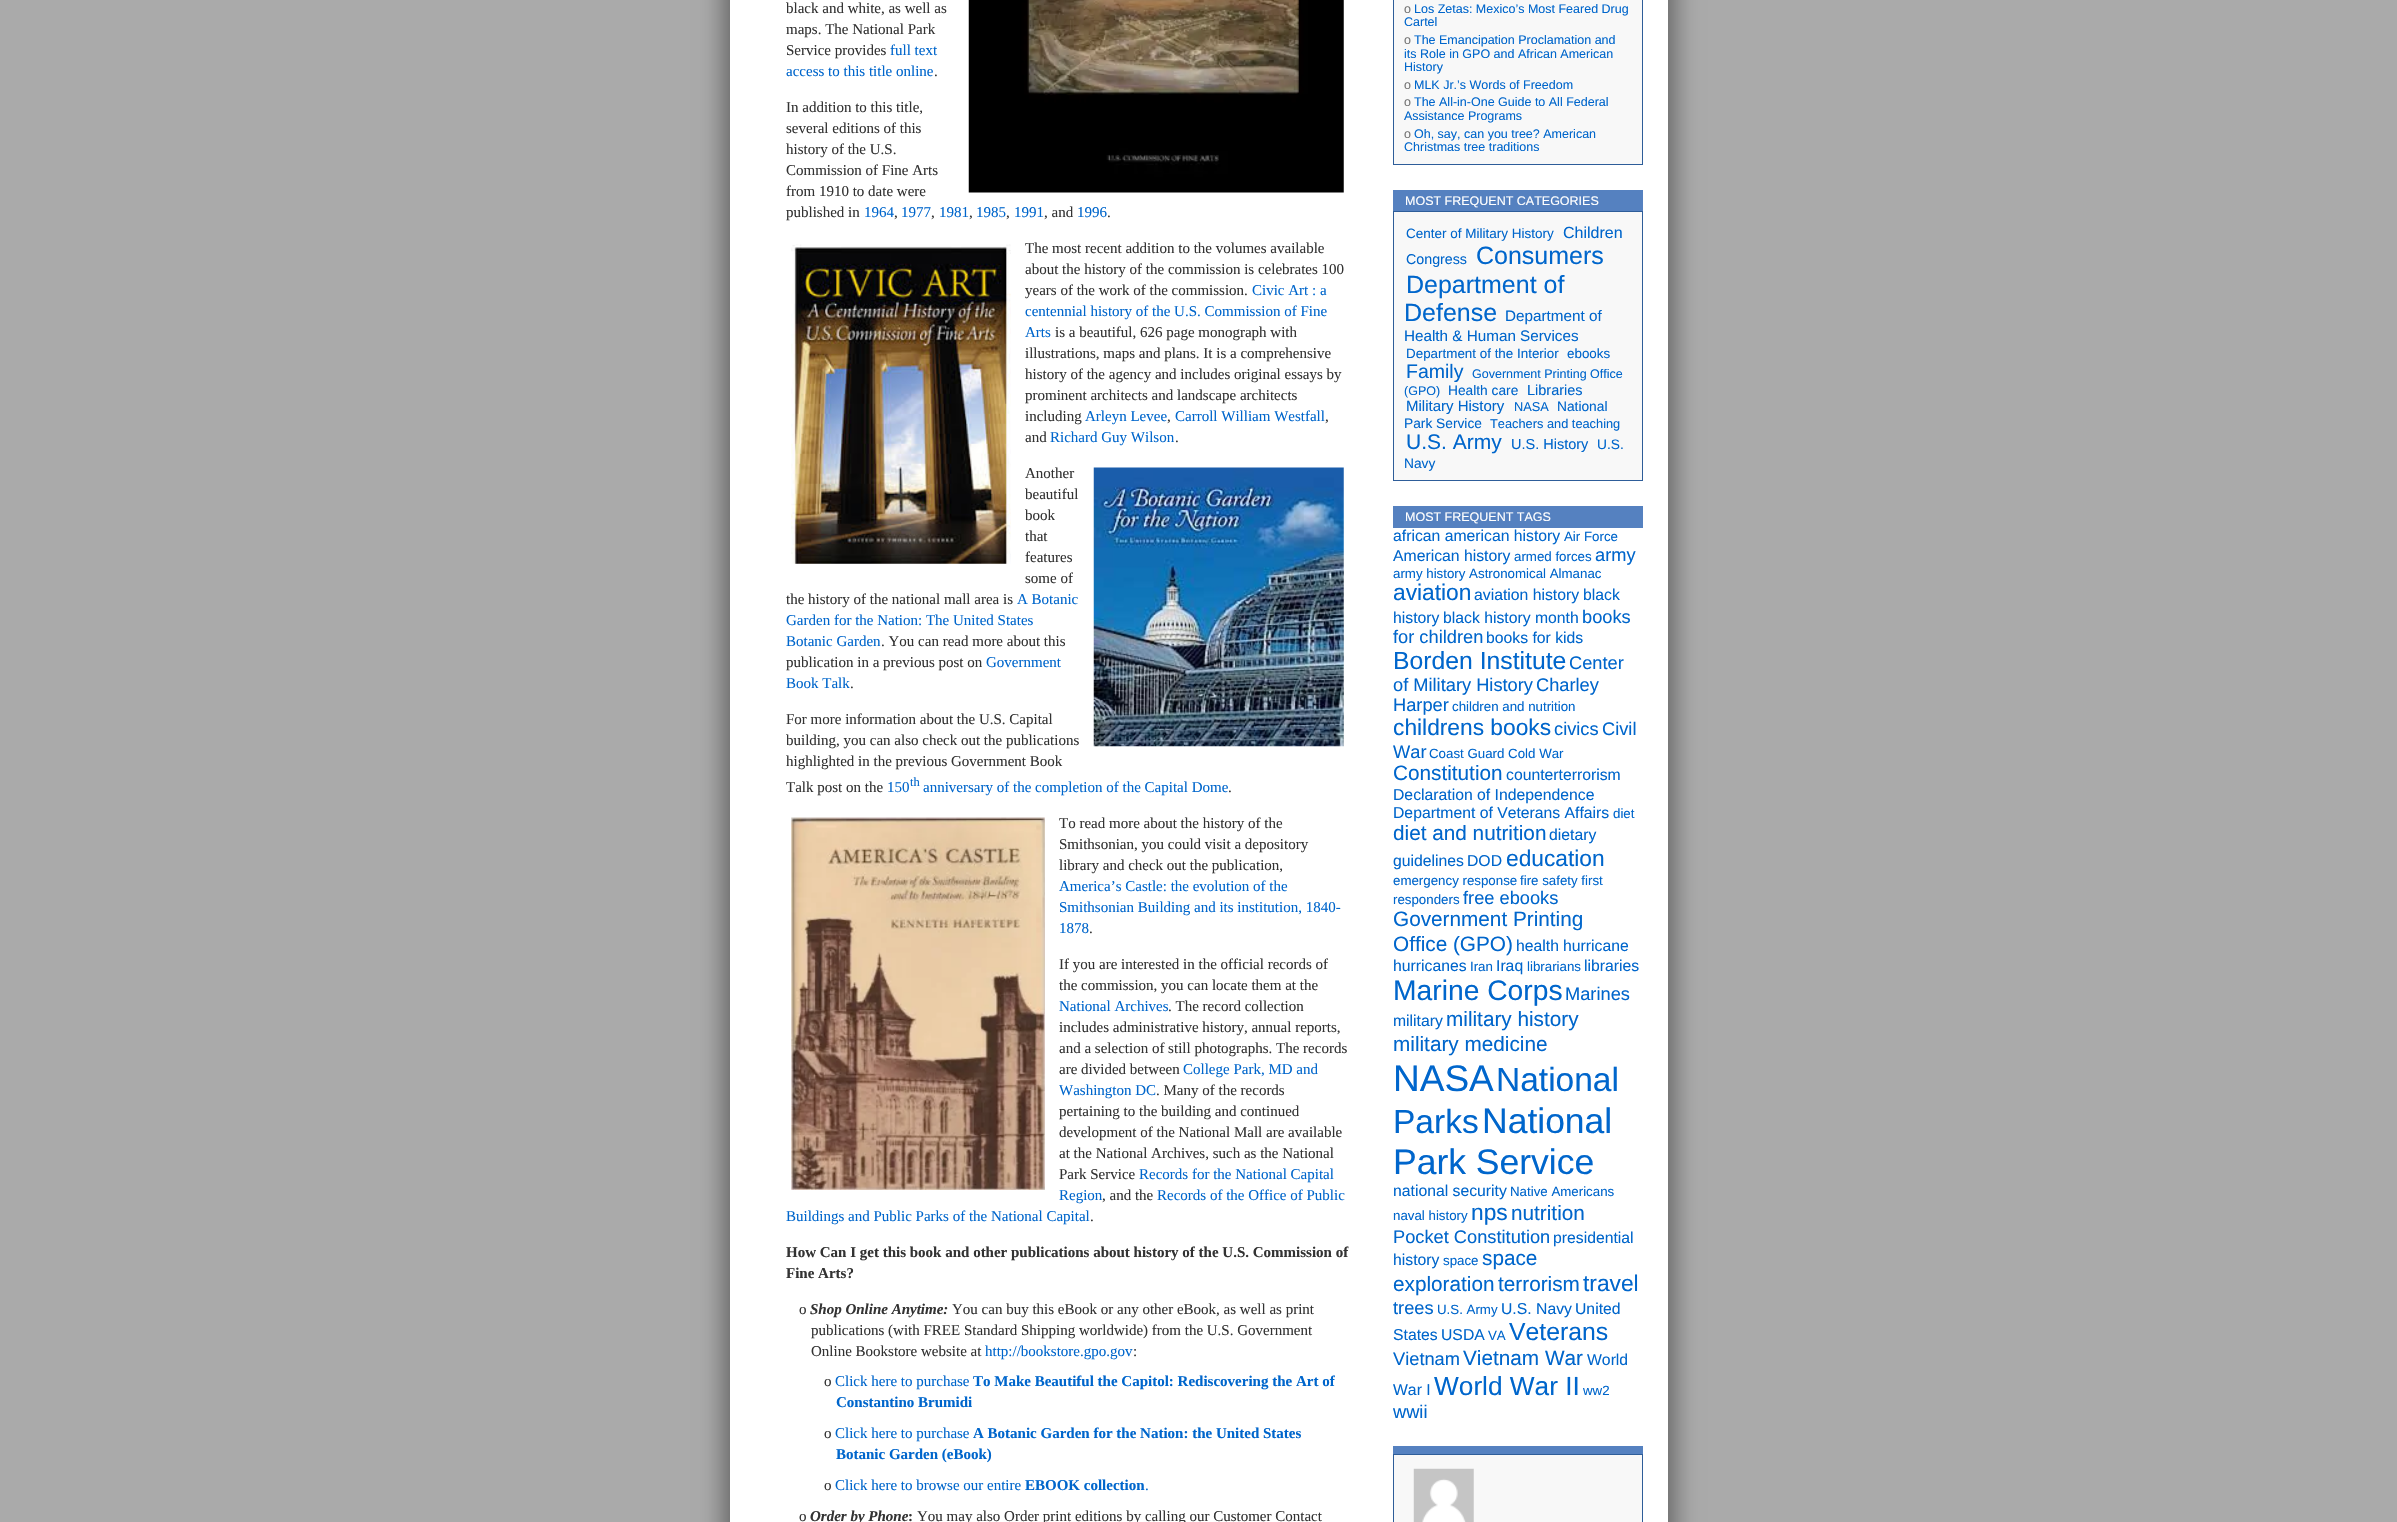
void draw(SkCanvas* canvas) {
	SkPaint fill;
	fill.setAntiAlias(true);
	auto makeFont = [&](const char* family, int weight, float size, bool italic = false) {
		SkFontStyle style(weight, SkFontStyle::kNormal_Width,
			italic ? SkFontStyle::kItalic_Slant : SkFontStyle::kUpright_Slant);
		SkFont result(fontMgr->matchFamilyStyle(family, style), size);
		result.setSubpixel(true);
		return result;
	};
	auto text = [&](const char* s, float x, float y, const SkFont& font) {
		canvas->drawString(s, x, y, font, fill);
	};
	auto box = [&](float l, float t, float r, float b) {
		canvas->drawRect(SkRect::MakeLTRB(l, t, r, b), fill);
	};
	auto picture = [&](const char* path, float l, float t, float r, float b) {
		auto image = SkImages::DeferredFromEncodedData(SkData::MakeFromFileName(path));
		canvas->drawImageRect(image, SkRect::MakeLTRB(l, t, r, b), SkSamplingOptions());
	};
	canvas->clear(0xFFAAAAAA);
	fill.setColor(0x4D000000);
	fill.setMaskFilter(SkMaskFilter::MakeBlur(kNormal_SkBlurStyle, 10));
	canvas->drawRect(SkRect::MakeLTRB(720, -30, 1658, 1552), fill);
	fill.setMaskFilter(nullptr);
	fill.setMaskFilter(SkMaskFilter::MakeBlur(kNormal_SkBlurStyle, 10));
	canvas->drawRect(SkRect::MakeLTRB(740, -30, 1678, 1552), fill);
	fill.setMaskFilter(nullptr);
	fill.setColor(0xFFFFFFFF);
	box(730, 0, 1668, 1522);
	picture("image0.png", 968, 0, 1344, 193);
	picture("image1.png", 791, 244, 1011, 564);
	picture("image2.png", 1093, 467, 1344, 747);
	picture("image3.png", 791, 817, 1045, 1190);
	fill.setColor(0xFFF8F8F8);
	canvas->drawRect(SkRect::MakeLTRB(1393.5f, -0.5f, 1642.5f, 164.5f), fill);
	fill.setStyle(SkPaint::kStroke_Style);
	fill.setStrokeWidth(1);
	fill.setColor(0xFF2E5D99);
	canvas->drawRect(SkRect::MakeLTRB(1393.5f, -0.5f, 1642.5f, 164.5f), fill);
	fill.setStyle(SkPaint::kFill_Style);
	fill.setColor(0xFF5581C0);
	box(1393, 190, 1643, 211);
	fill.setColor(0xFFF8F8F8);
	canvas->drawRect(SkRect::MakeLTRB(1393.5f, 211.5f, 1642.5f, 480.5f), fill);
	fill.setStyle(SkPaint::kStroke_Style);
	fill.setColor(0xFF2E5D99);
	canvas->drawRect(SkRect::MakeLTRB(1393.5f, 211.5f, 1642.5f, 480.5f), fill);
	fill.setStyle(SkPaint::kFill_Style);
	fill.setColor(0xFF5581C0);
	box(1393, 506, 1643, 528);
	box(1393, 1446, 1643, 1454);
	fill.setColor(0xFFF8F8F8);
	canvas->drawRect(SkRect::MakeLTRB(1393.5f, 1454.5f, 1642.5f, 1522.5f), fill);
	fill.setStyle(SkPaint::kStroke_Style);
	fill.setColor(0xFF2E5D99);
	canvas->drawRect(SkRect::MakeLTRB(1393.5f, 1454.5f, 1642.5f, 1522.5f), fill);
	picture("image4.png", 1413, 1468, 1474, 1522);
	auto font1 = makeFont("Liberation Serif", 400, 15);
	fill.setStyle(SkPaint::kFill_Style);
	fill.setColor(0xFF333333);
	text("black and white, as well as", 786, 13, font1);
	text("maps. The National Park", 786, 34, font1);
	text("Service provides", 786, 55, font1);
	fill.setColor(0xFF0066CC);
	text("full text", 890, 55, font1);
	text("access to this title online", 786, 76, font1);
	fill.setColor(0xFF333333);
	text(".", 934, 76, font1);
	text("In addition to this title,", 786, 112, font1);
	text("several editions of this", 786, 133, font1);
	text("history of the U.S.", 786, 154, font1);
	text("Commission of Fine Arts", 786, 175, font1);
	text("from 1910 to date were", 786, 196, font1);
	text("published in", 786, 217, font1);
	fill.setColor(0xFF0066CC);
	text("1964", 864, 217, font1);
	fill.setColor(0xFF333333);
	text(",", 894, 217, font1);
	fill.setColor(0xFF0066CC);
	text("1977", 901, 217, font1);
	fill.setColor(0xFF333333);
	text(",", 931, 217, font1);
	fill.setColor(0xFF0066CC);
	text("1981", 939, 217, font1);
	fill.setColor(0xFF333333);
	text(",", 969, 217, font1);
	fill.setColor(0xFF0066CC);
	text("1985", 976, 217, font1);
	fill.setColor(0xFF333333);
	text(",", 1006, 217, font1);
	fill.setColor(0xFF0066CC);
	text("1991", 1014, 217, font1);
	fill.setColor(0xFF333333);
	text(", and", 1044, 217, font1);
	fill.setColor(0xFF0066CC);
	text("1996", 1077, 217, font1);
	fill.setColor(0xFF333333);
	text(".", 1107, 217, font1);
	text("The most recent addition to the volumes available", 1025, 253, font1);
	text("about the history of the commission is celebrates 100", 1025, 274, font1);
	text("years of the work of the commission.", 1025, 295, font1);
	fill.setColor(0xFF0066CC);
	text("Civic Art : a", 1252, 295, font1);
	text("centennial history of the U.S. Commission of Fine", 1025, 316, font1);
	text("Arts", 1025, 337, font1);
	fill.setColor(0xFF333333);
	text("is a beautiful, 626 page monograph with", 1055, 337, font1);
	text("illustrations, maps and plans. It is a comprehensive", 1025, 358, font1);
	text("history of the agency and includes original essays by", 1025, 379, font1);
	text("prominent architects and landscape architects", 1025, 400, font1);
	text("including", 1025, 421, font1);
	fill.setColor(0xFF0066CC);
	text("Arleyn Levee", 1085, 421, font1);
	fill.setColor(0xFF333333);
	text(",", 1167, 421, font1);
	fill.setColor(0xFF0066CC);
	text("Carroll William Westfall", 1175, 421, font1);
	fill.setColor(0xFF333333);
	text(",", 1325, 421, font1);
	text("and", 1025, 442, font1);
	fill.setColor(0xFF0066CC);
	text("Richard Guy Wilson", 1050, 442, font1);
	fill.setColor(0xFF333333);
	text(".", 1175, 442, font1);
	text("Another", 1025, 478, font1);
	text("beautiful", 1025, 499, font1);
	text("book", 1025, 520, font1);
	text("that", 1025, 541, font1);
	text("features", 1025, 562, font1);
	text("some of", 1025, 583, font1);
	text("the history of the national mall area is", 786, 604, font1);
	fill.setColor(0xFF0066CC);
	text("A Botanic", 1017, 604, font1);
	text("Garden for the Nation: The United States", 786, 625, font1);
	text("Botanic Garden", 786, 646, font1);
	fill.setColor(0xFF333333);
	text(". You can read more about this", 881, 646, font1);
	text("publication in a previous post on", 786, 667, font1);
	fill.setColor(0xFF0066CC);
	text("Government", 986, 667, font1);
	text("Book Talk", 786, 688, font1);
	fill.setColor(0xFF333333);
	text(".", 850, 688, font1);
	text("For more information about the U.S. Capital", 786, 724, font1);
	text("building, you can also check out the publications", 786, 745, font1);
	text("highlighted in the previous Government Book", 786, 766, font1);
	text("Talk post on the", 786, 792, font1);
	fill.setColor(0xFF0066CC);
	text("150", 887, 792, font1);
	auto font2 = makeFont("Liberation Serif", 400, 12.5f);
	text("th", 910, 786, font2);
	text("anniversary of the completion of the Capital Dome", 923, 792, font1);
	fill.setColor(0xFF333333);
	text(".", 1228, 792, font1);
	text("To read more about the history of the", 1059, 828, font1);
	text("Smithsonian, you could visit a depository", 1059, 849, font1);
	text("library and check out the publication,", 1059, 870, font1);
	fill.setColor(0xFF0066CC);
	text("America’s Castle: the evolution of the", 1059, 891, font1);
	text("Smithsonian Building and its institution, 1840-", 1059, 912, font1);
	text("1878", 1059, 933, font1);
	fill.setColor(0xFF333333);
	text(".", 1089, 933, font1);
	text("If you are interested in the official records of", 1059, 969, font1);
	text("the commission, you can locate them at the", 1059, 990, font1);
	fill.setColor(0xFF0066CC);
	text("National Archives", 1059, 1011, font1);
	fill.setColor(0xFF333333);
	text(". The record collection", 1168, 1011, font1);
	text("includes administrative history, annual reports,", 1059, 1032, font1);
	text("and a selection of still photographs. The records", 1059, 1053, font1);
	text("are divided between", 1059, 1074, font1);
	fill.setColor(0xFF0066CC);
	text("College Park, MD and", 1183, 1074, font1);
	text("Washington DC", 1059, 1095, font1);
	fill.setColor(0xFF333333);
	text(". Many of the records", 1156, 1095, font1);
	text("pertaining to the building and continued", 1059, 1116, font1);
	text("development of the National Mall are available", 1059, 1137, font1);
	text("at the National Archives, such as the National", 1059, 1158, font1);
	text("Park Service", 1059, 1179, font1);
	fill.setColor(0xFF0066CC);
	text("Records for the National Capital", 1139, 1179, font1);
	text("Region", 1059, 1200, font1);
	fill.setColor(0xFF333333);
	text(", and the", 1102, 1200, font1);
	fill.setColor(0xFF0066CC);
	text("Records of the Office of Public", 1157, 1200, font1);
	text("Buildings and Public Parks of the National Capital", 786, 1221, font1);
	fill.setColor(0xFF333333);
	text(".", 1090, 1221, font1);
	auto font3 = makeFont("Liberation Serif", 700, 15);
	text("How Can I get this book and other publications about history of the U.S. Commission of", 786, 1257, font3);
	text("Fine Arts?", 786, 1278, font3);
	text("o", 799, 1314, font1);
	auto font4 = makeFont("Liberation Serif", 700, 15, true);
	text("Shop Online Anytime:", 810, 1314, font4);
	text("You can buy this eBook or any other eBook, as well as print", 952, 1314, font1);
	text("publications (with FREE Standard Shipping worldwide) from the U.S. Government", 811, 1335, font1);
	text("Online Bookstore website at", 811, 1356, font1);
	fill.setColor(0xFF0066CC);
	text("http://bookstore.gpo.gov", 985, 1356, font1);
	fill.setColor(0xFF333333);
	text(":", 1133, 1356, font1);
	text("o", 824, 1386, font1);
	fill.setColor(0xFF0066CC);
	text("Click here to purchase", 835, 1386, font1);
	text("To Make Beautiful the Capitol: Rediscovering the Art of", 973, 1386, font3);
	text("Constantino Brumidi", 836, 1407, font3);
	fill.setColor(0xFF333333);
	text("o", 824, 1438, font1);
	fill.setColor(0xFF0066CC);
	text("Click here to purchase", 835, 1438, font1);
	text("A Botanic Garden for the Nation: the United States", 973, 1438, font3);
	text("Botanic Garden (eBook)", 836, 1459, font3);
	fill.setColor(0xFF333333);
	text("o", 824, 1490, font1);
	fill.setColor(0xFF0066CC);
	text("Click here to browse our entire", 835, 1490, font1);
	text("EBOOK collection", 1025, 1490, font3);
	text(".", 1145, 1490, font1);
	fill.setColor(0xFF333333);
	text("o", 799, 1521, font1);
	text("Order by Phone", 810, 1521, font4);
	text(":", 908, 1521, font3);
	text("You may also Order print editions by calling our Customer Contact", 917, 1521, font1);
	auto font5 = makeFont("Liberation Sans", 400, 12.5f);
	fill.setColor(0xFF777777);
	text("o", 1404, 13, font5);
	fill.setColor(0xFF0066CC);
	text("Los Zetas: Mexico’s Most Feared Drug", 1414, 13, font5);
	text("Cartel", 1404, 26, font5);
	fill.setColor(0xFF777777);
	text("o", 1404, 44, font5);
	fill.setColor(0xFF0066CC);
	text("The Emancipation Proclamation and", 1414, 44, font5);
	text("its Role in GPO and African American", 1404, 58, font5);
	text("History", 1404, 71, font5);
	fill.setColor(0xFF777777);
	text("o", 1404, 89, font5);
	fill.setColor(0xFF0066CC);
	text("MLK Jr.’s Words of Freedom", 1414, 89, font5);
	fill.setColor(0xFF777777);
	text("o", 1404, 106, font5);
	fill.setColor(0xFF0066CC);
	text("The All-in-One Guide to All Federal", 1414, 106, font5);
	text("Assistance Programs", 1404, 120, font5);
	fill.setColor(0xFF777777);
	text("o", 1404, 138, font5);
	fill.setColor(0xFF0066CC);
	text("Oh, say, can you tree? American", 1414, 138, font5);
	text("Christmas tree traditions", 1404, 151, font5);
	fill.setColor(0xFFFFFFFF);
	text("MOST FREQUENT CATEGORIES", 1405, 205, font5);
	auto font6 = makeFont("Liberation Sans", 400, 13.5f);
	fill.setColor(0xFF0066CC);
	text("Center of Military History", 1406, 238, font6);
	auto font7 = makeFont("Liberation Sans", 400, 16);
	text("Children", 1563, 238, font7);
	auto font8 = makeFont("Liberation Sans", 400, 14.25f);
	text("Congress", 1406, 264, font8);
	auto font9 = makeFont("Liberation Sans", 400, 25);
	text("Consumers", 1476, 264, font9);
	text("Department of", 1406, 293, font9);
	text("Defense", 1404, 321, font9);
	auto font10 = makeFont("Liberation Sans", 400, 15.25f);
	text("Department of", 1505, 321, font10);
	text("Health & Human Services", 1404, 341, font10);
	auto font11 = makeFont("Liberation Sans", 400, 13.4f);
	text("Department of the Interior", 1406, 358, font11);
	text("ebooks", 1567, 358, font11);
	auto font12 = makeFont("Liberation Sans", 400, 19.5f);
	text("Family", 1406, 378, font12);
	text("Government Printing Office", 1472, 378, font5);
	text("(GPO)", 1404, 395, font5);
	auto font13 = makeFont("Liberation Sans", 400, 13.75f);
	text("Health care", 1448, 395, font13);
	auto font14 = makeFont("Liberation Sans", 400, 14.5f);
	text("Libraries", 1527, 395, font14);
	auto font15 = makeFont("Liberation Sans", 400, 15);
	text("Military History", 1406, 411, font15);
	auto font16 = makeFont("Liberation Sans", 400, 12.8f);
	text("NASA", 1514, 411, font16);
	text("National", 1557, 411, font13);
	text("Park Service", 1404, 428, font13);
	text("Teachers and teaching", 1490, 428, font16);
	auto font17 = makeFont("Liberation Sans", 400, 21);
	text("U.S. Army", 1406, 449, font17);
	text("U.S. History", 1511, 449, font14);
	text("U.S.", 1597, 449, font13);
	text("Navy", 1404, 468, font13);
	fill.setColor(0xFFFFFFFF);
	text("MOST FREQUENT TAGS", 1405, 521, font5);
	auto font18 = makeFont("Liberation Sans", 400, 15.75f);
	fill.setColor(0xFF0066CC);
	text("african american history", 1393, 541, font18);
	auto font19 = makeFont("Liberation Sans", 400, 13.3f);
	text("Air Force", 1564, 541, font19);
	text("American history", 1393, 561, font18);
	text("armed forces", 1514, 561, font19);
	auto font20 = makeFont("Liberation Sans", 400, 18.25f);
	text("army", 1595, 561, font20);
	text("army history Astronomical Almanac", 1393, 578, font19);
	auto font21 = makeFont("Liberation Sans", 400, 22.75f);
	text("aviation", 1393, 600, font21);
	text("aviation history", 1474, 600, font18);
	text("black", 1583, 600, font18);
	text("history", 1393, 623, font18);
	text("black history month", 1443, 623, font18);
	text("books", 1582, 623, font20);
	text("for children", 1393, 643, font20);
	text("books for kids", 1486, 643, font18);
	auto font22 = makeFont("Liberation Sans", 400, 24.75f);
	text("Borden Institute", 1393, 669, font22);
	text("Center", 1569, 669, font20);
	text("of Military History", 1393, 691, font20);
	text("Charley", 1536, 691, font20);
	text("Harper", 1393, 711, font20);
	text("children and nutrition", 1452, 711, font19);
	text("childrens books", 1393, 735, font21);
	text("civics", 1554, 735, font20);
	text("Civil", 1602, 735, font20);
	text("War", 1393, 758, font20);
	text("Coast Guard Cold War", 1429, 758, font19);
	auto font23 = makeFont("Liberation Sans", 400, 20.75f);
	text("Constitution", 1393, 780, font23);
	text("counterterrorism", 1506, 780, font18);
	text("Declaration of Independence", 1393, 800, font18);
	text("Department of Veterans Affairs", 1393, 818, font18);
	text("diet", 1613, 818, font19);
	text("diet and nutrition", 1393, 840, font23);
	text("dietary", 1549, 840, font18);
	text("guidelines", 1393, 866, font18);
	text("DOD", 1467, 866, font18);
	text("education", 1506, 866, font21);
	text("emergency response", 1393, 885, font19);
	text("fire safety first", 1520, 885, font19);
	text("responders", 1393, 904, font19);
	text("free ebooks", 1463, 904, font20);
	text("Government Printing", 1393, 926, font23);
	text("Office (GPO)", 1393, 951, font23);
	text("health", 1516, 951, font18);
	text("hurricane", 1563, 951, font18);
	text("hurricanes", 1393, 971, font18);
	text("Iran", 1470, 971, font19);
	text("Iraq", 1496, 971, font18);
	text("librarians", 1527, 971, font19);
	text("libraries", 1584, 971, font18);
	auto font24 = makeFont("Liberation Sans", 400, 28.25f);
	text("Marine Corps", 1393, 1000, font24);
	text("Marines", 1565, 1000, font20);
	text("military", 1393, 1026, font18);
	text("military history", 1446, 1026, font23);
	text("military medicine", 1393, 1051, font23);
	auto font25 = makeFont("Liberation Sans", 400, 37);
	text("NASA", 1393, 1091, font25);
	auto font26 = makeFont("Liberation Sans", 400, 33.5f);
	text("National", 1496, 1091, font26);
	text("Parks", 1393, 1133, font26);
	auto font27 = makeFont("Liberation Sans", 400, 35.5f);
	text("National", 1482, 1133, font27);
	text("Park Service", 1393, 1174, font27);
	text("national security", 1393, 1196, font18);
	text("Native Americans", 1510, 1196, font19);
	text("naval history", 1393, 1220, font19);
	text("nps", 1471, 1220, font21);
	text("nutrition", 1511, 1220, font23);
	text("Pocket Constitution", 1393, 1243, font20);
	text("presidential", 1553, 1243, font18);
	text("history", 1393, 1265, font18);
	text("space", 1443, 1265, font19);
	text("space", 1482, 1265, font23);
	text("exploration", 1393, 1291, font23);
	text("terrorism", 1498, 1291, font23);
	text("travel", 1583, 1291, font21);
	text("trees", 1393, 1314, font20);
	text("U.S. Army", 1437, 1314, font19);
	text("U.S. Navy", 1501, 1314, font18);
	text("United", 1575, 1314, font18);
	text("States", 1393, 1340, font18);
	text("USDA", 1441, 1340, font18);
	text("VA", 1488, 1340, font19);
	text("Veterans", 1509, 1340, font22);
	text("Vietnam", 1393, 1365, font20);
	text("Vietnam War", 1463, 1365, font23);
	text("World", 1587, 1365, font18);
	text("War I", 1393, 1395, font18);
	auto font28 = makeFont("Liberation Sans", 400, 26.25f);
	text("World War II", 1434, 1395, font28);
	text("ww2", 1583, 1395, font19);
	text("wwii", 1393, 1418, font20);
}
